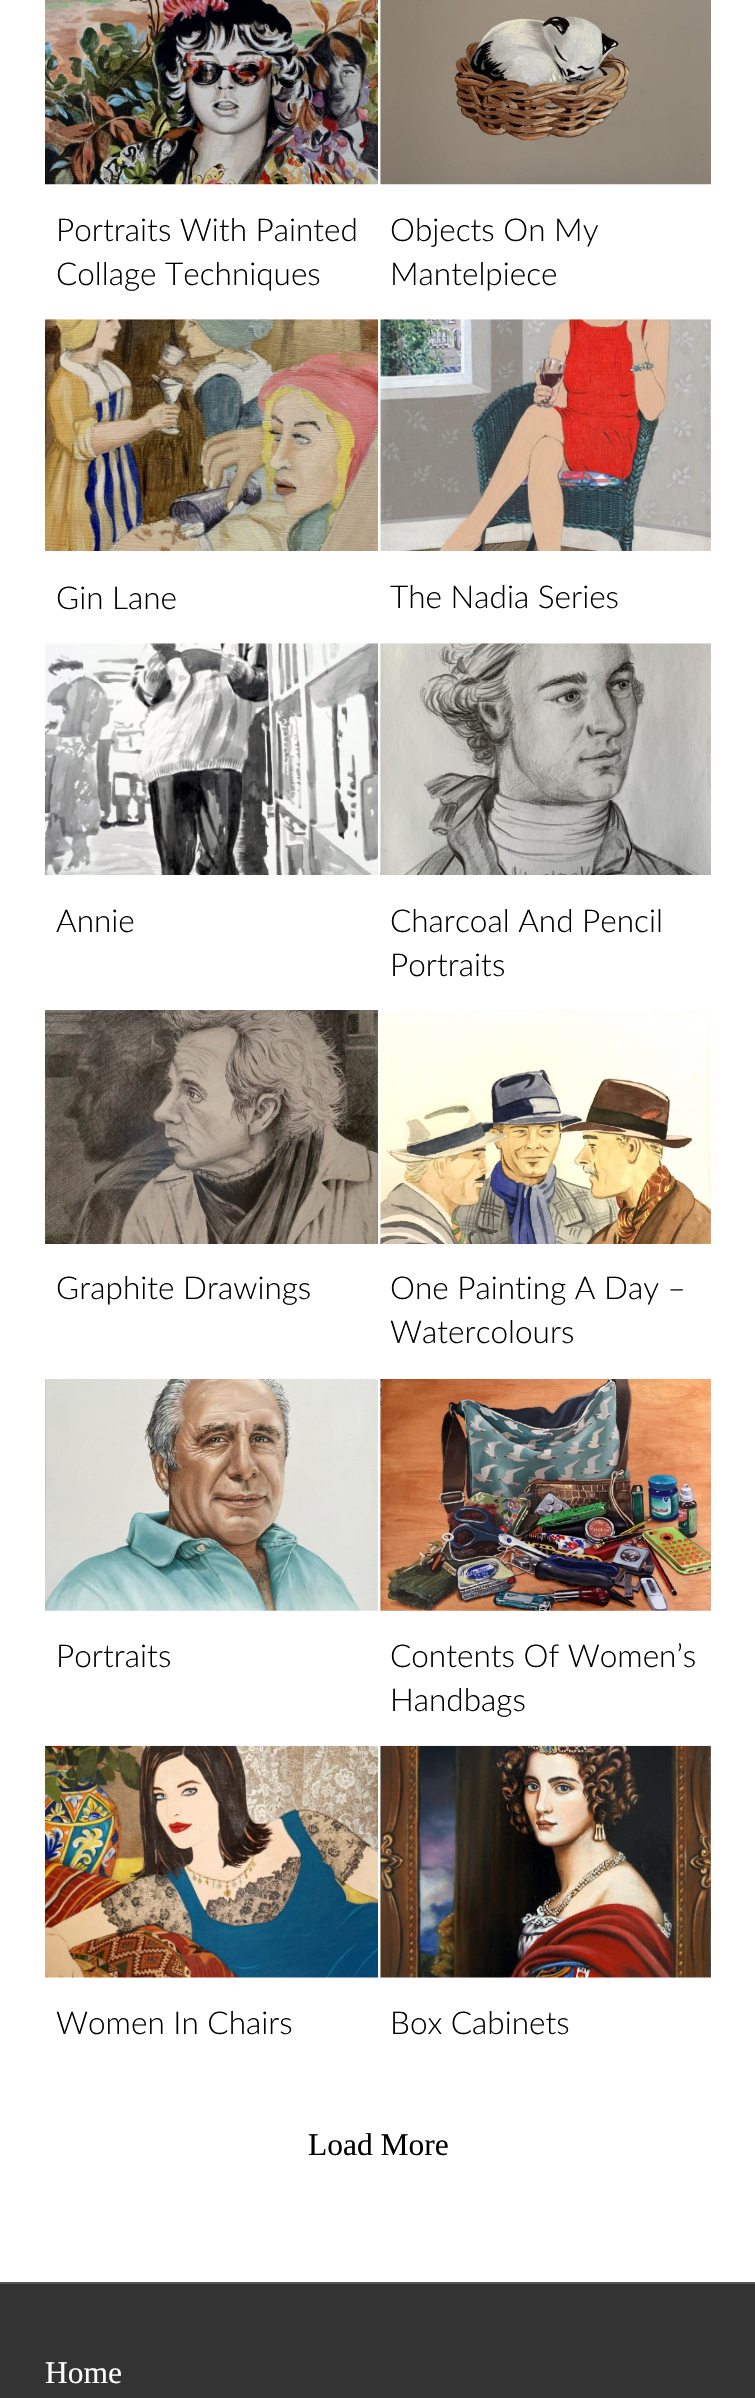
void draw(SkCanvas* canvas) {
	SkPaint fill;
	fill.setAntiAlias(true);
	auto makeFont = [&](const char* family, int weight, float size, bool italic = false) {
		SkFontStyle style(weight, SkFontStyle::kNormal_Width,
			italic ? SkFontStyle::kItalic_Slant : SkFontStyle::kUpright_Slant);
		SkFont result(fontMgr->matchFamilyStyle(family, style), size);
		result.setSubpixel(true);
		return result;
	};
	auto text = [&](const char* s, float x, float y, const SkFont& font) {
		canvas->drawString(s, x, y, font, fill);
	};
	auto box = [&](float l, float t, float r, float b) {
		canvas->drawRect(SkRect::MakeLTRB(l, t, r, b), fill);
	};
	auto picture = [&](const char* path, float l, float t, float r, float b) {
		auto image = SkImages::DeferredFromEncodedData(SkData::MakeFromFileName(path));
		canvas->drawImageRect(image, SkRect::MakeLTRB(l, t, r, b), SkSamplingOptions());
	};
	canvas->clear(0xFFFFFFFF);
	picture("image0.png", 45, 0, 378, 185);
	picture("image1.png", 380, 0, 711, 185);
	picture("image2.png", 45, 319, 378, 551);
	picture("image3.png", 380, 319, 711, 551);
	picture("image4.png", 45, 643, 378, 875);
	picture("image5.png", 380, 643, 711, 875);
	picture("image6.png", 45, 1010, 378, 1244);
	picture("image7.png", 380, 1010, 711, 1244);
	picture("image8.png", 45, 1379, 378, 1611);
	picture("image9.png", 380, 1379, 711, 1611);
	picture("image10.png", 45, 1745, 378, 1978);
	picture("image11.png", 380, 1745, 711, 1978);
	fill.setColor(0xFF333333);
	box(0, 2284, 755, 2398);
	fill.setColor(0xFF545454);
	box(0, 2282, 755, 2284);
	auto font1 = makeFont("Lato", 300, 31.5f);
	fill.setColor(0xFF000000);
	text("Portraits With Painted", 56, 241, font1);
	text("Collage Techniques", 56, 285, font1);
	text("Objects On My", 390, 241, font1);
	text("Mantelpiece", 390, 285, font1);
	text("Gin Lane", 56, 609, font1);
	text("The Nadia Series", 390, 608, font1);
	text("Annie", 56, 932, font1);
	text("Charcoal And Pencil", 390, 932, font1);
	text("Portraits", 390, 976, font1);
	text("Graphite Drawings", 56, 1299, font1);
	text("One Painting A Day –", 390, 1299, font1);
	text("Watercolours", 390, 1343, font1);
	text("Portraits", 56, 1667, font1);
	text("Contents Of Women’s", 390, 1667, font1);
	text("Handbags", 390, 1711, font1);
	text("Women In Chairs", 56, 2034, font1);
	text("Box Cabinets", 390, 2034, font1);
	auto font2 = makeFont("Liberation Serif", 400, 31.5f);
	text("Load More", 308, 2155, font2);
	fill.setColor(0xFFFFFFFF);
	text("Home", 45, 2383, font2);
}
